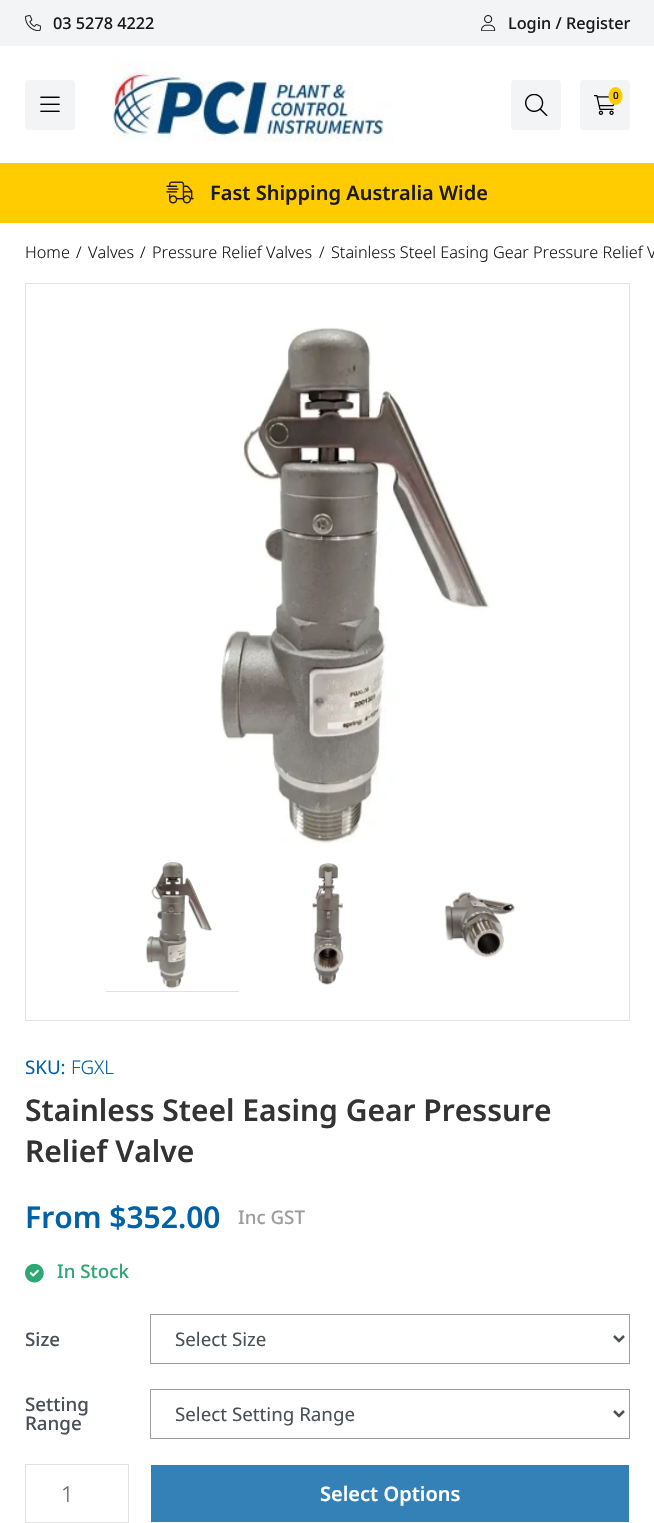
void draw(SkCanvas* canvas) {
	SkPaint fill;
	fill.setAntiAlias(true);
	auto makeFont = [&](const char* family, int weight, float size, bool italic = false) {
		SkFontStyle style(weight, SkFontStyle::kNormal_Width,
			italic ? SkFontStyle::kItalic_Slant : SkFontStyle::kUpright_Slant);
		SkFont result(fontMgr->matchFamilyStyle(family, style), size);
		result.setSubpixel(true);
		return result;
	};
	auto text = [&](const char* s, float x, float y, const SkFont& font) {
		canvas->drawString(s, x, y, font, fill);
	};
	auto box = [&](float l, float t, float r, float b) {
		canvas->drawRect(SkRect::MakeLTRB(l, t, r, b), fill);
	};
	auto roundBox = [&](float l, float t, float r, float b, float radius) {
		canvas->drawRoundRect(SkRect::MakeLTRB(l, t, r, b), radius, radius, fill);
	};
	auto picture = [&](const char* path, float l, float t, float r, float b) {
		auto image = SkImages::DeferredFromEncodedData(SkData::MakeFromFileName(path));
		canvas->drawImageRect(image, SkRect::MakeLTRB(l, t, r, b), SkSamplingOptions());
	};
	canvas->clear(0xFFFFFFFF);
	fill.setColor(0xFFF3F4F5);
	box(0, 0, 654, 46);
	picture("image0.png", 25, 15, 41, 31);
	picture("image1.png", 481, 15, 496, 31);
	roundBox(25, 80, 75, 130, 4);
	picture("image2.png", 40, 96, 60, 112);
	picture("image3.png", 112, 61, 394, 142);
	roundBox(511, 80, 561, 130, 4);
	picture("image4.png", 525, 94, 548, 116);
	roundBox(580, 80, 630, 130, 4);
	picture("image5.png", 594, 95, 615, 115);
	fill.setColor(0xFFFFCC02);
	canvas->drawOval(SkRect::MakeLTRB(608.5f, 87, 622.5f, 105), fill);
	box(0, 163, 654, 223);
	picture("image6.png", 166, 181, 194, 204);
	fill.setStyle(SkPaint::kStroke_Style);
	fill.setStrokeWidth(1);
	fill.setColor(0xFFE2E2E2);
	canvas->drawRect(SkRect::MakeLTRB(25.5f, 283.5f, 629.5f, 1020.5f), fill);
	picture("image7.png", 220, 327, 490, 844);
	fill.setStyle(SkPaint::kFill_Style);
	box(106, 991, 239, 992);
	picture("image8.png", 145, 862, 212, 989);
	picture("image9.png", 311, 863, 344, 985);
	picture("image10.png", 444, 892, 515, 958);
	picture("image11.png", 25, 1264, 44, 1283);
	fill.setStyle(SkPaint::kStroke_Style);
	fill.setColor(0xFF9D9D9D);
	canvas->drawRect(SkRect::MakeLTRB(150.5f, 1314.5f, 629.5f, 1363.5f), fill);
	fill.setStrokeWidth(2.5f);
	fill.setColor(0xFF495057);
	canvas->drawPath(SkPathBuilder().moveTo(614, 1336).lineTo(619, 1341).lineTo(624, 1336).detach(), fill);
	fill.setStrokeWidth(1);
	fill.setColor(0xFF9D9D9D);
	canvas->drawRect(SkRect::MakeLTRB(150.5f, 1389.5f, 629.5f, 1438.5f), fill);
	fill.setStrokeWidth(2.5f);
	fill.setColor(0xFF495057);
	canvas->drawPath(SkPathBuilder().moveTo(614, 1411).lineTo(619, 1416).lineTo(624, 1411).detach(), fill);
	fill.setStrokeWidth(1);
	fill.setColor(0xFFE2E2E2);
	canvas->drawRect(SkRect::MakeLTRB(25.5f, 1464.5f, 128.5f, 1522.5f), fill);
	fill.setStyle(SkPaint::kFill_Style);
	fill.setColor(0xFF3481B7);
	box(151, 1465, 629, 1522);
	auto font1 = makeFont("Noto Sans", 500, 16.25f);
	fill.setColor(0xFF1B1B1B);
	text("03 5278 4222", 53, 29, font1);
	text("Login / Register", 508, 29, font1);
	auto font2 = makeFont("Noto Sans", 600, 10);
	text("0", 613, 99, font2);
	auto font3 = makeFont("Noto Sans", 600, 20);
	text("Fast Shipping Australia Wide", 210, 200, font3);
	auto font4 = makeFont("Noto Sans", 300, 16.25f);
	text("Home", 25, 258, font4);
	text("/", 76, 258, font4);
	text("Valves", 88, 258, font4);
	text("/", 140, 258, font4);
	text("Pressure Relief Valves", 152, 258, font4);
	text("/", 319, 258, font4);
	text("Stainless Steel Easing Gear Pressure Relief V", 331, 258, font4);
	auto font5 = makeFont("Noto Sans", 400, 18.75f);
	fill.setColor(0xFF0161A5);
	text("SKU:", 25, 1074, font5);
	auto font6 = makeFont("Noto Sans", 300, 18.75f);
	text("FGXL", 71, 1074, font6);
	auto font7 = makeFont("Noto Sans", 600, 30);
	fill.setColor(0xFF333333);
	text("Stainless Steel Easing Gear Pressure", 25, 1121, font7);
	text("Relief Valve", 25, 1162, font7);
	fill.setColor(0xFF0161A5);
	text("From $352.00", 25, 1228, font7);
	auto font8 = makeFont("Noto Sans", 500, 18.75f);
	fill.setColor(0xFF9D9D9D);
	text("Inc GST", 238, 1224, font8);
	fill.setColor(0xFF2DA774);
	text("In Stock", 57, 1278, font8);
	fill.setColor(0xFF495057);
	text("Size", 25, 1346, font8);
	text("Select Size", 175, 1346, font5);
	text("Setting", 25, 1411, font8);
	text("Range", 25, 1430, font8);
	text("Select Setting Range", 175, 1421, font5);
	auto font9 = makeFont("Noto Sans", 300, 22);
	fill.setColor(0xFF656565);
	text("1", 61, 1502, font9);
	fill.setColor(0xFFFFFFFF);
	text("Select Options", 320, 1501, font3);
}
